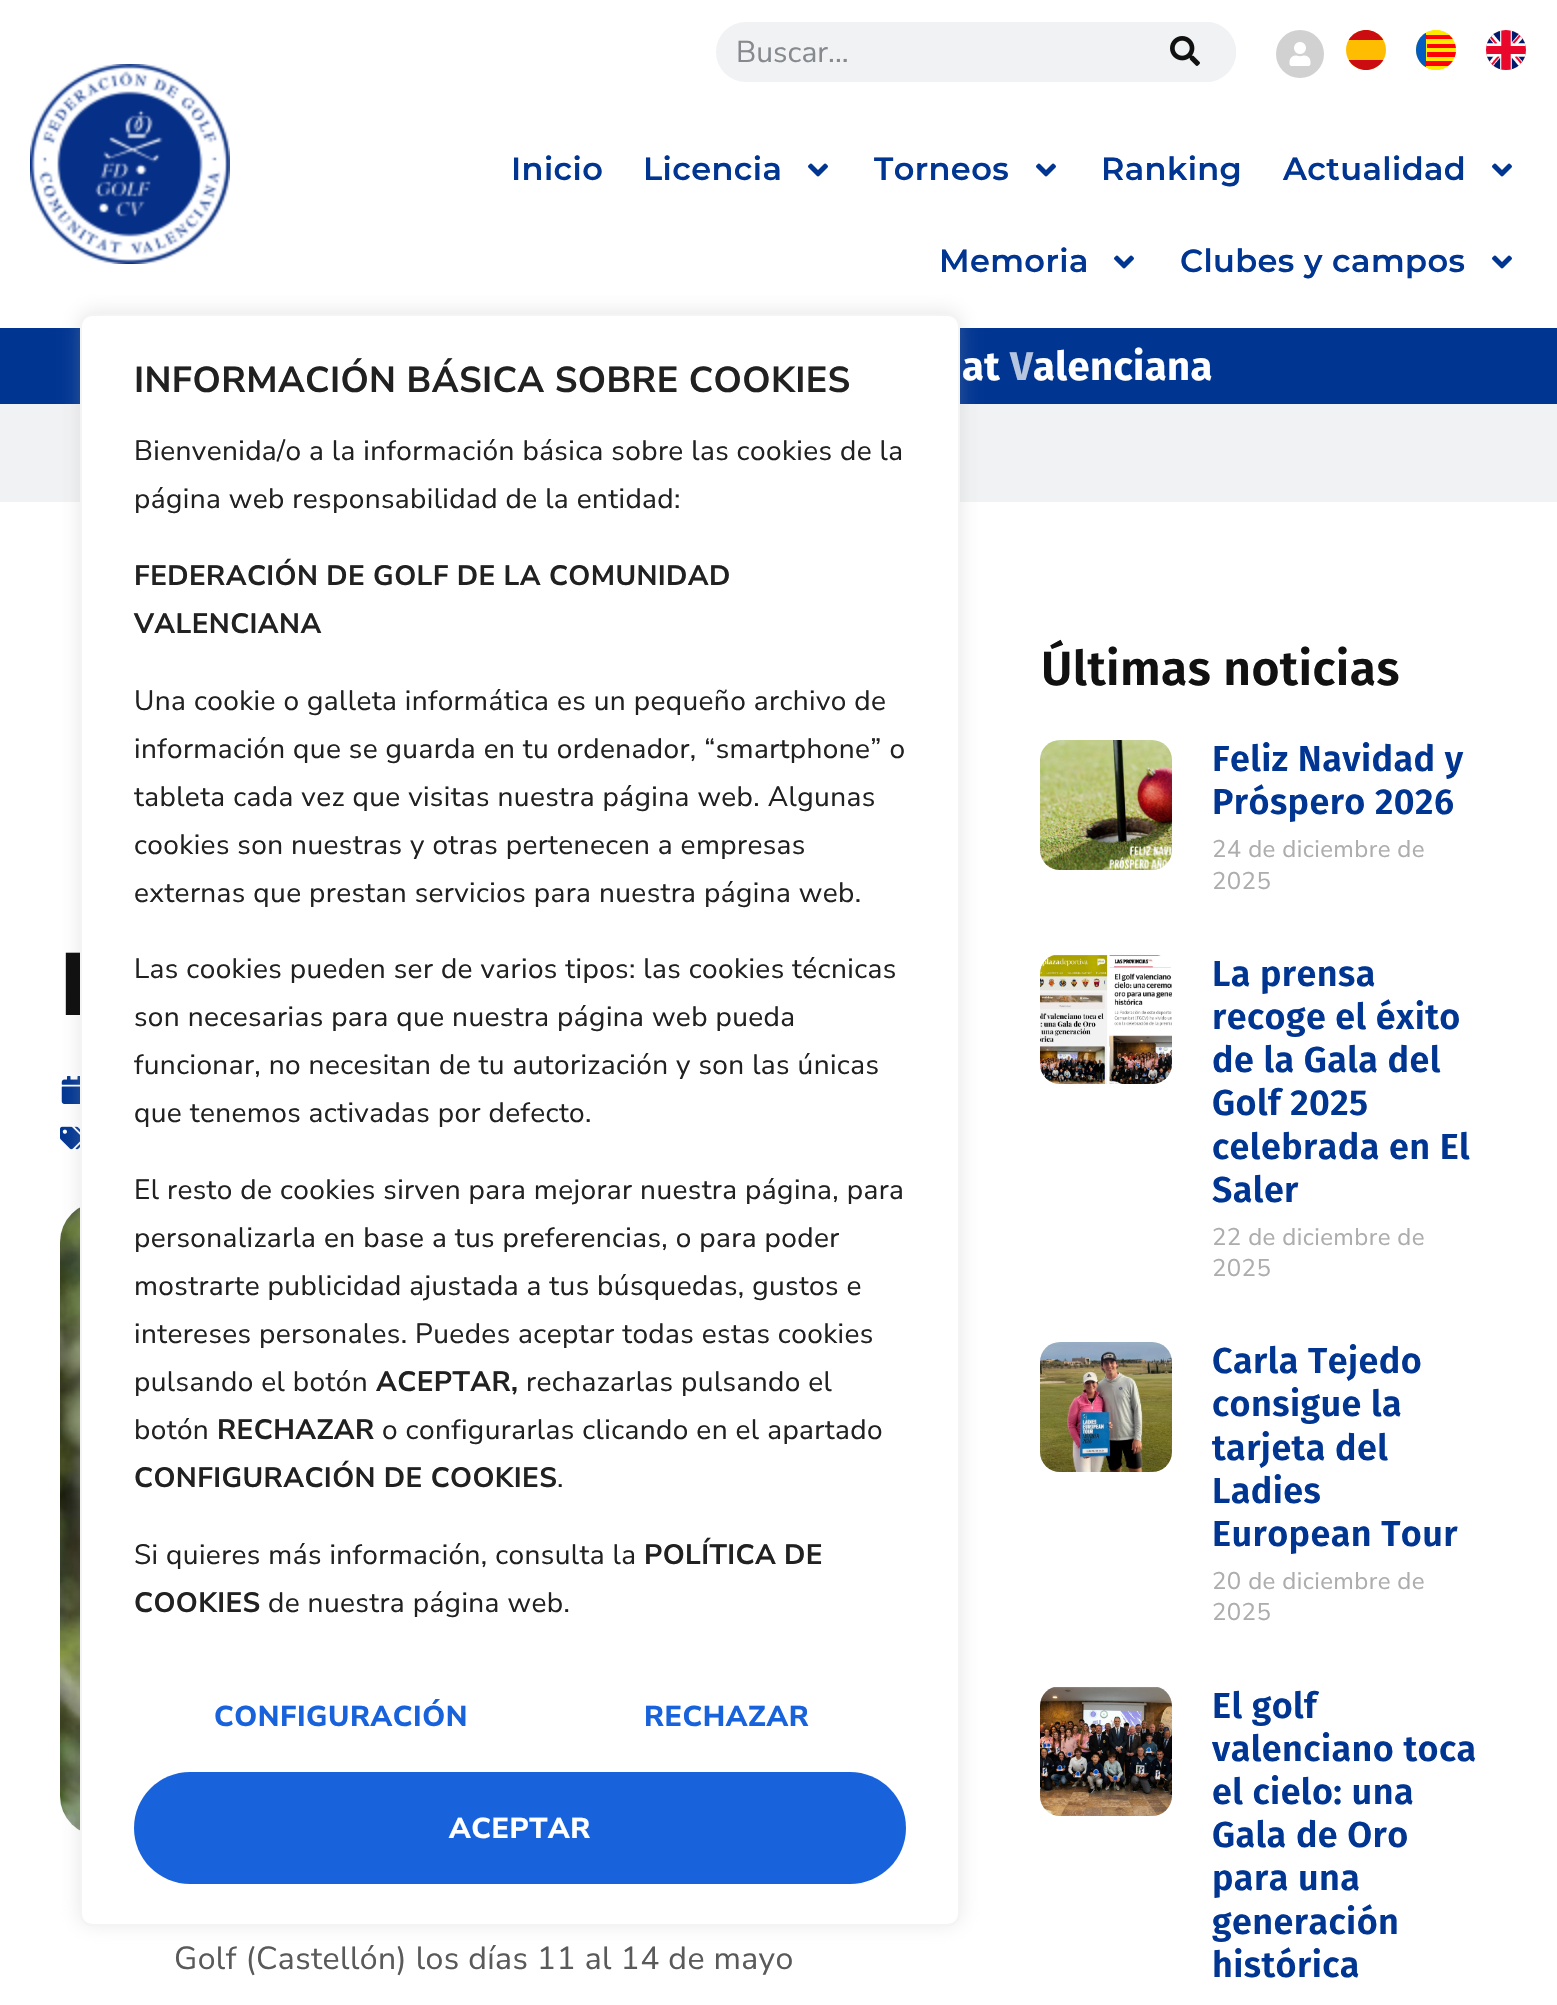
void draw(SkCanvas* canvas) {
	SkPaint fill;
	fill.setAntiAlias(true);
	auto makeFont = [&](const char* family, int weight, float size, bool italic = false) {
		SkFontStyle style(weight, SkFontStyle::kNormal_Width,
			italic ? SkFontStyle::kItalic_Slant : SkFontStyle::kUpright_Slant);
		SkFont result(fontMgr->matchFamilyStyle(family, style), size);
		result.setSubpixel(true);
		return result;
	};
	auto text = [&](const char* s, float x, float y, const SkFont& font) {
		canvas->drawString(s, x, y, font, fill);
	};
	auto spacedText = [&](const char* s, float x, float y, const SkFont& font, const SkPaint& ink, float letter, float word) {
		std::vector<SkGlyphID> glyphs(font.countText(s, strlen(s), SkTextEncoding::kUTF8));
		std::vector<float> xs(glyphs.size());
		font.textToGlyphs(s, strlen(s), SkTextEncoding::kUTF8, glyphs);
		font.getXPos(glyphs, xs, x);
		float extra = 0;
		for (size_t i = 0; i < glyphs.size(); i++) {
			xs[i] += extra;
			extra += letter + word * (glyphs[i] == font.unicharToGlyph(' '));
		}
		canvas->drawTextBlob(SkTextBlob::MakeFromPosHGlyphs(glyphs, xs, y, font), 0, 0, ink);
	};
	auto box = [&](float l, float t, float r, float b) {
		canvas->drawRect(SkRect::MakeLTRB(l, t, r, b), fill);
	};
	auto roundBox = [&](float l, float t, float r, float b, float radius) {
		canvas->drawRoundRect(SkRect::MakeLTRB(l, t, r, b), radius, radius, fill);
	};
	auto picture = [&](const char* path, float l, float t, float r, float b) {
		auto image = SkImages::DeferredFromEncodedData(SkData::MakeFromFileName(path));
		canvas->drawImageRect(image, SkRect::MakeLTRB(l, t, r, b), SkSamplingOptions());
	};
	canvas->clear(0xFFFFFFFF);
	picture("image0.png", 30, 64, 230, 264);
	fill.setColor(0xFFF1F2F3);
	roundBox(716, 22, 1236, 82, 30);
	canvas->drawPath(SkPathBuilder().moveTo(1136, 22).lineTo(1206, 22).cubicTo(1222.5f, 22, 1236, 35.5f, 1236, 52).cubicTo(1236, 68.5f, 1222.5f, 82, 1206, 82).lineTo(1136, 82).close().detach(), fill);
	picture("image1.png", 1170, 36, 1200, 66);
	fill.setColor(0xFFD1D1D1);
	canvas->drawCircle(1300, 54, 24, fill);
	picture("image2.png", 1289, 42, 1311, 66);
	fill.setColor(0xFFFEBD00);
	canvas->drawCircle(1366, 50, 20, fill);
	canvas->save();
	canvas->clipPath(SkPathBuilder().moveTo(1366, 30).cubicTo(1377, 30, 1386, 39, 1386, 50).cubicTo(1386, 61, 1377, 70, 1366, 70).cubicTo(1355, 70, 1346, 61, 1346, 50).cubicTo(1346, 39, 1355, 30, 1366, 30).close().detach(), true);
	fill.setColor(0xFFCB0C11);
	box(1348, 30, 1384, 40);
	box(1348, 60, 1384, 70);
	canvas->restore();
	fill.setColor(0xFFFEE900);
	canvas->drawCircle(1436, 50, 20, fill);
	canvas->save();
	canvas->clipPath(SkPathBuilder().moveTo(1436, 30).cubicTo(1447, 30, 1456, 39, 1456, 50).cubicTo(1456, 61, 1447, 70, 1436, 70).cubicTo(1425, 70, 1416, 61, 1416, 50).cubicTo(1416, 39, 1425, 30, 1436, 30).close().detach(), true);
	fill.setColor(0xFF005BC3);
	box(1416, 32, 1426, 68);
	fill.setColor(0xFFFEE900);
	box(1426, 30, 1453, 39);
	fill.setColor(0xFFFE0006);
	box(1426, 35, 1456, 39);
	fill.setColor(0xFFFE0105);
	box(1427, 44, 1456, 48);
	box(1427, 52, 1456, 57);
	fill.setColor(0xFFFE0006);
	box(1426, 61, 1456, 66);
	fill.setColor(0xFFFEE900);
	box(1426, 66, 1456, 70);
	canvas->restore();
	picture("image3.png", 1486, 30, 1526, 70);
	picture("image4.png", 808, 163, 828, 177);
	picture("image4.png", 1036, 163, 1056, 177);
	picture("image4.png", 1492, 163, 1512, 177);
	picture("image4.png", 1114, 255, 1134, 269);
	picture("image4.png", 1492, 255, 1512, 269);
	fill.setColor(0xFF003592);
	box(0, 328, 1557, 404);
	fill.setColor(0xFFF1F2F3);
	box(0, 404, 1557, 502);
	picture("image5.png", 61, 1076, 80, 1104);
	picture("image6.png", 60, 1126, 80, 1150);
	picture("image7.png", 60, 1207, 80, 1831);
	fill.setColor(0x4DACABAB);
	fill.setMaskFilter(SkMaskFilter::MakeBlur(kNormal_SkBlurStyle, 10));
	canvas->drawRoundRect(SkRect::MakeLTRB(80, 312, 960, 1924), 12, 12, fill);
	fill.setMaskFilter(nullptr);
	picture("image8.png", 1040, 740, 1172, 870);
	picture("image9.png", 1040, 955, 1172, 1084);
	picture("image10.png", 1040, 1342, 1172, 1472);
	picture("image11.png", 1040, 1687, 1172, 1816);
	auto font1 = makeFont("Nunito Sans", 400, 30);
	fill.setColor(0xFF868A8E);
	text("Buscar...", 736, 62, font1);
	auto font2 = makeFont("Montserrat", 600, 32);
	fill.setColor(0xFF003592);
	spacedText("Inicio", 511, 180, font2, fill, 0.4f, 0);
	spacedText("Licencia", 643, 180, font2, fill, 0.4f, 0);
	spacedText("Torneos", 874, 180, font2, fill, 0.4f, 0);
	spacedText("Ranking", 1101, 180, font2, fill, 0.4f, 0);
	spacedText("Actualidad", 1283, 180, font2, fill, 0.4f, 0);
	spacedText("Memoria", 939, 272, font2, fill, 0.4f, 0);
	spacedText("Clubes y campos", 1180, 272, font2, fill, 0.4f, 0);
	auto font3 = makeFont("Fira Sans", 700, 40);
	fill.setColor(0xFFFFFFFF);
	spacedText("at", 962, 380, font3, fill, 0.4f, 0);
	fill.setColor(0xFFB5C4DF);
	spacedText("V", 1010, 380, font3, fill, 0.4f, 0);
	fill.setColor(0xFFFFFFFF);
	spacedText("alenciana", 1033, 380, font3, fill, 0.4f, 0);
	auto font4 = makeFont("Fira Sans", 700, 90);
	fill.setColor(0xFF111111);
	spacedText("F", 60, 1015, font4, fill, 0.4f, 0);
	fill.setColor(0xFFFFFFFF);
	canvas->drawRoundRect(SkRect::MakeLTRB(81, 315, 959, 1925), 11, 11, fill);
	fill.setStyle(SkPaint::kStroke_Style);
	fill.setStrokeWidth(2);
	fill.setColor(0xFFF4F4F4);
	canvas->drawRoundRect(SkRect::MakeLTRB(81, 315, 959, 1925), 11, 11, fill);
	fill.setStyle(SkPaint::kFill_Style);
	fill.setColor(0xFF1863DC);
	roundBox(134, 1772, 906, 1884, 56);
	auto font5 = makeFont("Nunito Sans", 800, 28.75f);
	fill.setColor(0xFFFFFFFF);
	spacedText("ACEPTAR", 449, 1838, font5, fill, 0.6f, 0);
	fill.setColor(0xFF1863DC);
	spacedText("RECHAZAR", 644, 1726, font5, fill, 0.6f, 0);
	spacedText("CONFIGURACIÓN", 214, 1726, font5, fill, 0.6f, 0);
	auto font6 = makeFont("Nunito Sans", 400, 28);
	fill.setColor(0xFF212121);
	spacedText("de nuestra página web.", 268, 1612, font6, fill, 0.4f, 0);
	auto font7 = makeFont("Nunito Sans", 700, 28);
	spacedText("COOKIES", 134, 1612, font7, fill, 0.4f, 0);
	spacedText("POLÍTICA DE", 644, 1564, font7, fill, 0.4f, 0);
	spacedText("Si quieres más información, consulta la", 134, 1564, font6, fill, 0.4f, 0);
	spacedText(".", 557, 1487, font6, fill, 0.4f, 0);
	spacedText("CONFIGURACIÓN DE COOKIES", 134, 1487, font7, fill, 0.4f, 0);
	spacedText("o configurarlas clicando en el apartado", 382, 1439, font6, fill, 0.4f, 0);
	spacedText("RECHAZAR", 217, 1439, font7, fill, 0.4f, 0);
	spacedText("botón", 134, 1439, font6, fill, 0.4f, 0);
	spacedText("rechazarlas pulsando el", 526, 1391, font6, fill, 0.4f, 0);
	spacedText("ACEPTAR,", 376, 1391, font7, fill, 0.4f, 0);
	spacedText("pulsando el botón", 134, 1391, font6, fill, 0.4f, 0);
	spacedText("intereses personales. Puedes aceptar todas estas cookies", 134, 1343, font6, fill, 0.4f, 0);
	spacedText("mostrarte publicidad ajustada a tus búsquedas, gustos e", 134, 1295, font6, fill, 0.4f, 0);
	spacedText("personalizarla en base a tus preferencias, o para poder", 134, 1247, font6, fill, 0.4f, 0);
	spacedText("El resto de cookies sirven para mejorar nuestra página, para", 134, 1199, font6, fill, 0.4f, 0);
	spacedText("que tenemos activadas por defecto.", 134, 1122, font6, fill, 0.4f, 0);
	spacedText("funcionar, no necesitan de tu autorización y son las únicas", 134, 1074, font6, fill, 0.4f, 0);
	spacedText("son necesarias para que nuestra página web pueda", 134, 1026, font6, fill, 0.4f, 0);
	spacedText("Las cookies pueden ser de varios tipos: las cookies técnicas", 134, 978, font6, fill, 0.4f, 0);
	spacedText("externas que prestan servicios para nuestra página web.", 134, 902, font6, fill, 0.4f, 0);
	spacedText("cookies son nuestras y otras pertenecen a empresas", 134, 854, font6, fill, 0.4f, 0);
	spacedText("tableta cada vez que visitas nuestra página web. Algunas", 134, 806, font6, fill, 0.4f, 0);
	spacedText("información que se guarda en tu ordenador, “smartphone” o", 134, 758, font6, fill, 0.4f, 0);
	spacedText("Una cookie o galleta informática es un pequeño archivo de", 134, 710, font6, fill, 0.4f, 0);
	spacedText("VALENCIANA", 134, 633, font7, fill, 0.4f, 0);
	spacedText("FEDERACIÓN DE GOLF DE LA COMUNIDAD", 134, 585, font7, fill, 0.4f, 0);
	spacedText("página web responsabilidad de la entidad:", 134, 508, font6, fill, 0.4f, 0);
	spacedText("Bienvenida/o a la información básica sobre las cookies de la", 134, 460, font6, fill, 0.4f, 0);
	auto font8 = makeFont("Nunito Sans", 700, 36);
	spacedText("INFORMACIÓN BÁSICA SOBRE COOKIES", 134, 392, font8, fill, 0.4f, 0);
	auto font9 = makeFont("Nunito Sans", 400, 32);
	fill.setColor(0xFF5A5A5A);
	spacedText("Golf (Castellón) los días 11 al 14 de mayo", 174, 1969, font9, fill, 0.4f, 0);
	auto font10 = makeFont("Fira Sans", 600, 48);
	fill.setColor(0xFF111111);
	spacedText("Últimas noticias", 1041, 685, font10, fill, 0.4f, 0);
	auto font11 = makeFont("Fira Sans", 600, 36);
	fill.setColor(0xFF003592);
	spacedText("Feliz Navidad y", 1212, 771, font11, fill, 0.4f, 0);
	spacedText("Próspero 2026", 1212, 814, font11, fill, 0.4f, 0);
	auto font12 = makeFont("Nunito Sans", 400, 24);
	fill.setColor(0xFFADADAD);
	spacedText("24 de diciembre de", 1212, 857, font12, fill, 0.4f, 0);
	spacedText("2025", 1212, 889, font12, fill, 0.4f, 0);
	fill.setColor(0xFF003592);
	spacedText("La prensa", 1212, 986, font11, fill, 0.4f, 0);
	spacedText("recoge el éxito", 1212, 1029, font11, fill, 0.4f, 0);
	spacedText("de la Gala del", 1212, 1072, font11, fill, 0.4f, 0);
	spacedText("Golf 2025", 1212, 1115, font11, fill, 0.4f, 0);
	spacedText("celebrada en El", 1212, 1159, font11, fill, 0.4f, 0);
	spacedText("Saler", 1212, 1202, font11, fill, 0.4f, 0);
	fill.setColor(0xFFADADAD);
	spacedText("22 de diciembre de", 1212, 1245, font12, fill, 0.4f, 0);
	spacedText("2025", 1212, 1276, font12, fill, 0.4f, 0);
	fill.setColor(0xFF003592);
	spacedText("Carla Tejedo", 1212, 1373, font11, fill, 0.4f, 0);
	spacedText("consigue la", 1212, 1416, font11, fill, 0.4f, 0);
	spacedText("tarjeta del", 1212, 1460, font11, fill, 0.4f, 0);
	spacedText("Ladies", 1212, 1503, font11, fill, 0.4f, 0);
	spacedText("European Tour", 1212, 1546, font11, fill, 0.4f, 0);
	fill.setColor(0xFFADADAD);
	spacedText("20 de diciembre de", 1212, 1589, font12, fill, 0.4f, 0);
	spacedText("2025", 1212, 1620, font12, fill, 0.4f, 0);
	fill.setColor(0xFF003592);
	spacedText("El golf", 1212, 1718, font11, fill, 0.4f, 0);
	spacedText("valenciano toca", 1212, 1761, font11, fill, 0.4f, 0);
	spacedText("el cielo: una", 1212, 1804, font11, fill, 0.4f, 0);
	spacedText("Gala de Oro", 1212, 1847, font11, fill, 0.4f, 0);
	spacedText("para una", 1212, 1890, font11, fill, 0.4f, 0);
	spacedText("generación", 1212, 1934, font11, fill, 0.4f, 0);
	spacedText("histórica", 1212, 1977, font11, fill, 0.4f, 0);
}
